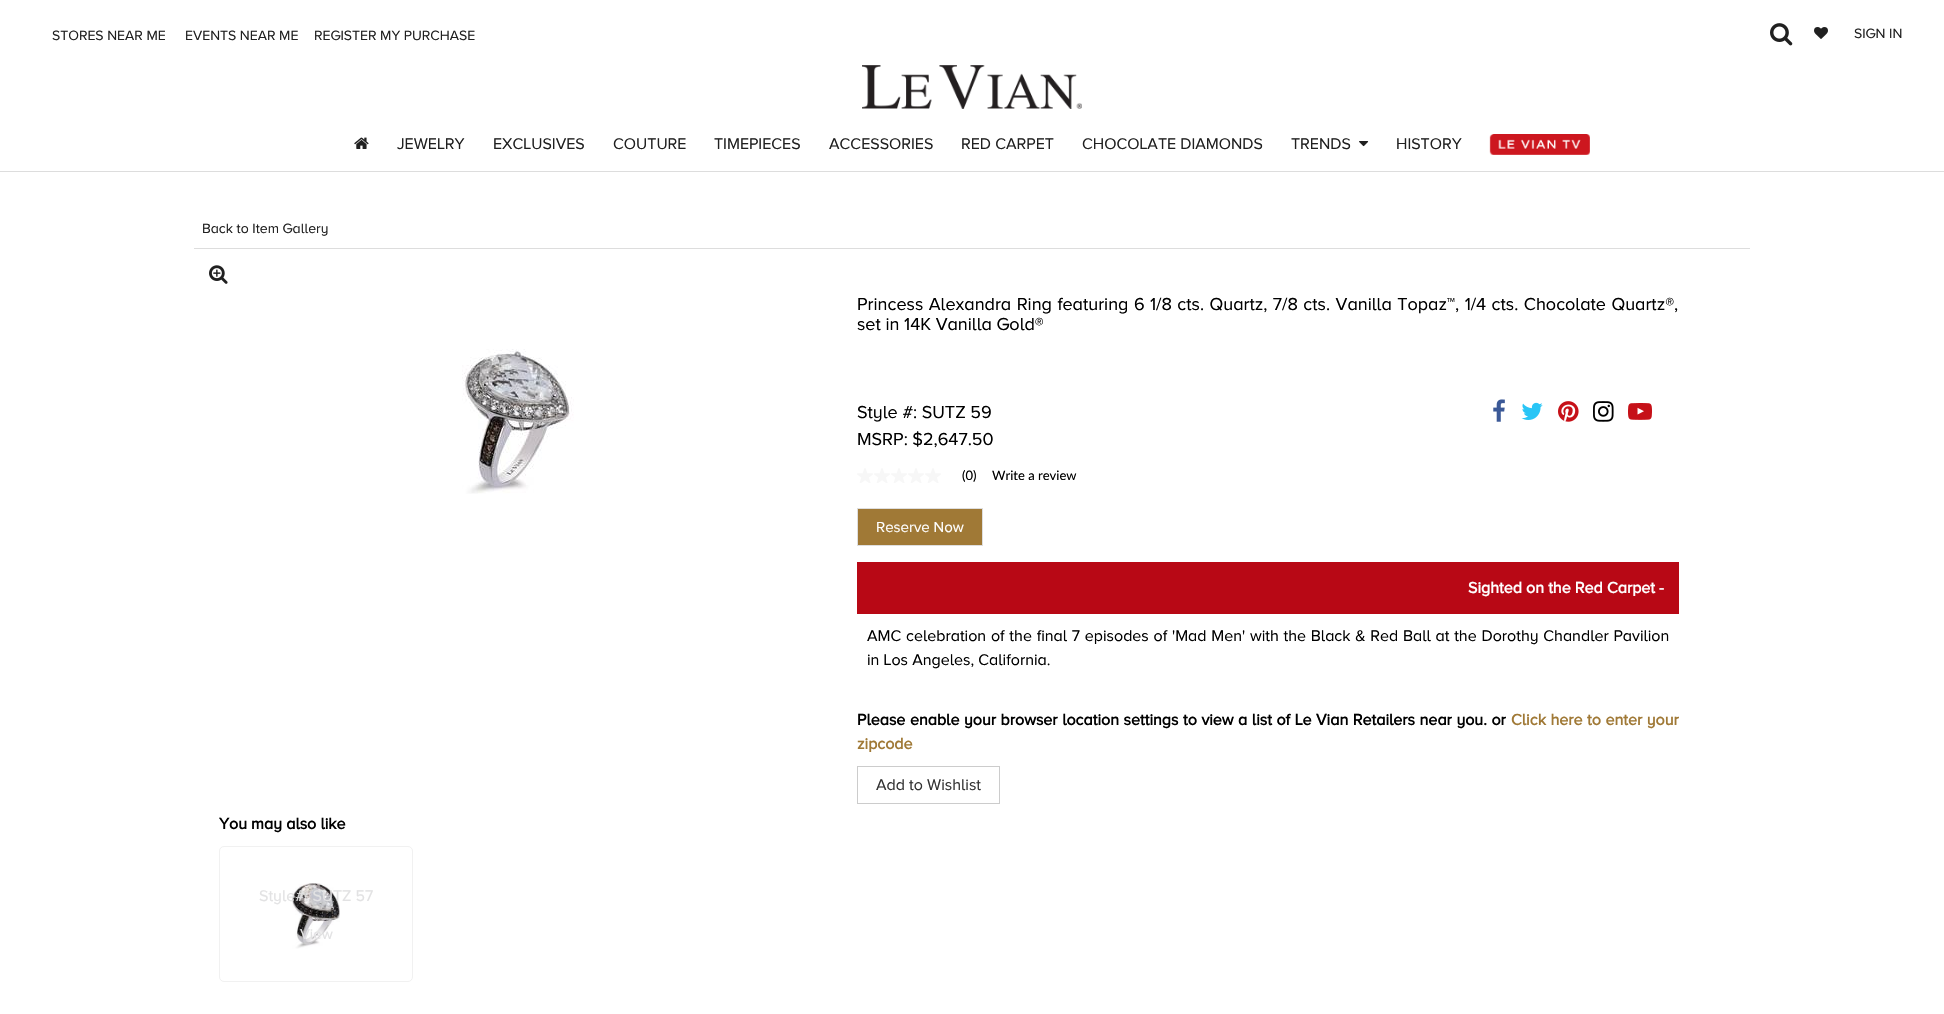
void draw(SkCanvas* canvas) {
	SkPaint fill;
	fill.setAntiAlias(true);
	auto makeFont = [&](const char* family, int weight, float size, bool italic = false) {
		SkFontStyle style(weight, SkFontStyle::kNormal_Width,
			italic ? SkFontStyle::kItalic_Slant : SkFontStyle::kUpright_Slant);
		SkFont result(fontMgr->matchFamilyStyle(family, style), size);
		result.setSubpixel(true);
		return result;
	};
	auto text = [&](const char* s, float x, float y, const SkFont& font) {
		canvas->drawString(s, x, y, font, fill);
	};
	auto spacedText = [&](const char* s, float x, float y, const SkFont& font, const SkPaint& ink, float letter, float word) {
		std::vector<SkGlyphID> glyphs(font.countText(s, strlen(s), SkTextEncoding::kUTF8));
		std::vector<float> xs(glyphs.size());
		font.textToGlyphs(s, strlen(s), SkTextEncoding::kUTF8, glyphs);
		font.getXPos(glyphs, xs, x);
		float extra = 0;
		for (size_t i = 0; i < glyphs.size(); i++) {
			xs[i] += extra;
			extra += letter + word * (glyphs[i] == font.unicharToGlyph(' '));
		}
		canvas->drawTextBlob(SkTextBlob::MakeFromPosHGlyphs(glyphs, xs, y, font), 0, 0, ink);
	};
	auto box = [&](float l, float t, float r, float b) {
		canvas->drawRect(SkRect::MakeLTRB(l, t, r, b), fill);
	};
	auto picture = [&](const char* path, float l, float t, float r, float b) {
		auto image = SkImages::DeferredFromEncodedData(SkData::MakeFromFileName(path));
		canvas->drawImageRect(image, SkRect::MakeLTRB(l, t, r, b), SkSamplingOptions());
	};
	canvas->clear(0xFFFFFFFF);
	fill.setColor(0xFFDDDDDD);
	box(0, 171, 1944, 172);
	picture("image0.png", 1770, 23, 1793, 46);
	picture("image1.png", 1814, 27, 1828, 39);
	picture("image2.png", 862, 65, 1082, 109);
	picture("image3.png", 354, 137, 369, 149);
	picture("image4.png", 1359, 141, 1369, 147);
	picture("image5.png", 1489, 134, 1590, 155);
	box(194, 248, 1750, 249);
	picture("image6.png", 209, 265, 228, 284);
	picture("image7.png", 462, 349, 574, 494);
	picture("image8.png", 1493, 399, 1505, 422);
	picture("image9.png", 1521, 402, 1543, 420);
	picture("image10.png", 1558, 401, 1579, 422);
	picture("image11.png", 1593, 401, 1614, 422);
	picture("image12.png", 1628, 403, 1652, 420);
	picture("image13.png", 857, 468, 873, 483);
	picture("image13.png", 874, 468, 890, 483);
	picture("image13.png", 891, 468, 907, 483);
	picture("image13.png", 908, 468, 924, 483);
	picture("image13.png", 925, 468, 941, 483);
	fill.setColor(0xFFA07936);
	canvas->drawRect(SkRect::MakeLTRB(857.5f, 508.5f, 982.5f, 545.5f), fill);
	fill.setStyle(SkPaint::kStroke_Style);
	fill.setStrokeWidth(1);
	fill.setColor(0xFFDEDEDE);
	canvas->drawRect(SkRect::MakeLTRB(857.5f, 508.5f, 982.5f, 545.5f), fill);
	fill.setStyle(SkPaint::kFill_Style);
	fill.setColor(0xFFB80815);
	box(857, 562, 1679, 614);
	fill.setStyle(SkPaint::kStroke_Style);
	fill.setColor(0xFFCCCCCC);
	canvas->drawRect(SkRect::MakeLTRB(857.5f, 766.5f, 999.5f, 803.5f), fill);
	fill.setColor(0xFFF1F1F1);
	canvas->drawRoundRect(SkRect::MakeLTRB(219.5f, 846.5f, 412.5f, 981.5f), 4.5f, 4.5f, fill);
	picture("image14.png", 292, 883, 340, 949);
	auto font1 = makeFont("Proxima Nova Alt", 400, 14);
	fill.setStyle(SkPaint::kFill_Style);
	fill.setColor(0xFF202020);
	text("STORES NEAR ME", 52, 40, font1);
	text("EVENTS NEAR ME", 185, 40, font1);
	text("REGISTER MY PURCHASE", 314, 40, font1);
	text("SIGN IN", 1854, 38, font1);
	auto font2 = makeFont("Proxima Nova Alt", 400, 16);
	text("JEWELRY", 397, 149, font2);
	text("EXCLUSIVES", 493, 149, font2);
	text("COUTURE", 613, 149, font2);
	text("TIMEPIECES", 714, 149, font2);
	text("ACCESSORIES", 829, 149, font2);
	text("RED CARPET", 961, 149, font2);
	text("CHOCOLATE DIAMONDS", 1082, 149, font2);
	text("TRENDS", 1291, 149, font2);
	text("HISTORY", 1396, 149, font2);
	text("Back to Item Gallery", 202, 233, font1);
	auto font3 = makeFont("Proxima Nova Alt", 400, 18);
	fill.setColor(0xFF000000);
	spacedText("Princess Alexandra Ring featuring 6 1/8 cts. Quartz, 7/8 cts. Vanilla Topaz™, 1/4 cts. Chocolate Quartz®,", 857, 310, font3, fill, 0, 0.8f);
	text("set in 14K Vanilla Gold®", 857, 330, font3);
	text("Style #: SUTZ 59", 857, 418, font3);
	text("MSRP: $2,647.50", 857, 445, font3);
	auto font4 = makeFont("Lato", 400, 13);
	text("(0)", 962, 480, font4);
	text("Write a review", 992, 480, font4);
	auto font5 = makeFont("Proxima Nova Alt", 400, 15);
	fill.setColor(0xFFFFFFFF);
	text("Reserve Now", 876, 532, font5);
	auto font6 = makeFont("Proxima Nova Alt", 700, 16);
	text("Sighted on the Red Carpet", 1468, 593, font6);
	text("-", 1659, 593, font6);
	fill.setColor(0xFF000000);
	spacedText("AMC celebration of the final 7 episodes of 'Mad Men' with the Black & Red Ball at the Dorothy Chandler Pavilion", 867, 641, font2, fill, 0, 0.6f);
	text("in Los Angeles, California.", 867, 665, font2);
	spacedText("Please enable your browser location settings to view a list of Le Vian Retailers near you. or", 857, 725, font6, fill, 0, 0.4f);
	fill.setColor(0xFFA07936);
	spacedText("Click here to enter your", 1511, 725, font6, fill, 0, 0.4f);
	text("zipcode", 857, 749, font6);
	fill.setColor(0xFF333333);
	text("Add to Wishlist", 876, 790, font2);
	fill.setColor(0xFF000000);
	text("You may also like", 219, 829, font6);
	fill.setColor(0xFFE2E2E3);
	text("Style#: SUTZ 57", 259, 901, font2);
	text("View", 300, 939, font5);
}
